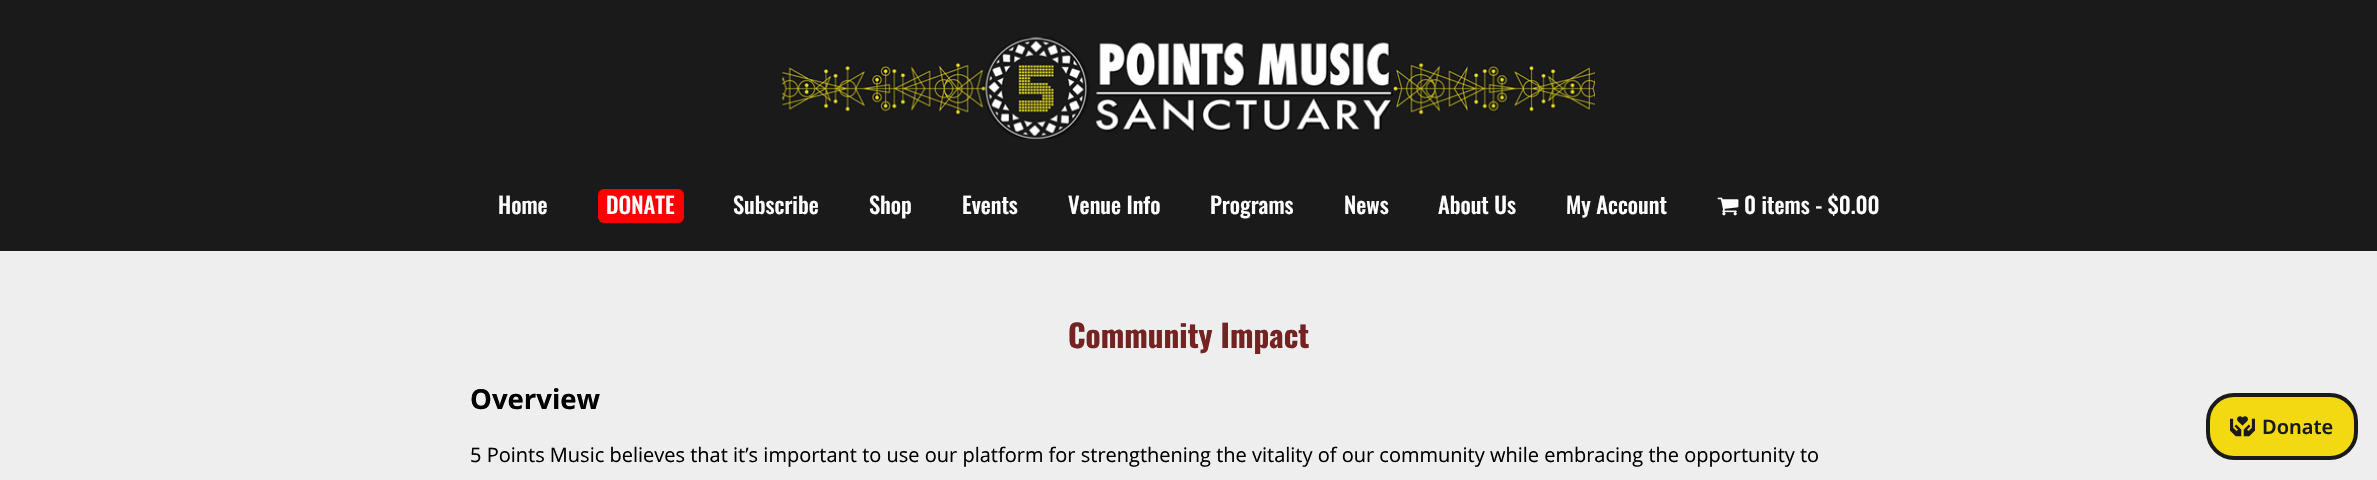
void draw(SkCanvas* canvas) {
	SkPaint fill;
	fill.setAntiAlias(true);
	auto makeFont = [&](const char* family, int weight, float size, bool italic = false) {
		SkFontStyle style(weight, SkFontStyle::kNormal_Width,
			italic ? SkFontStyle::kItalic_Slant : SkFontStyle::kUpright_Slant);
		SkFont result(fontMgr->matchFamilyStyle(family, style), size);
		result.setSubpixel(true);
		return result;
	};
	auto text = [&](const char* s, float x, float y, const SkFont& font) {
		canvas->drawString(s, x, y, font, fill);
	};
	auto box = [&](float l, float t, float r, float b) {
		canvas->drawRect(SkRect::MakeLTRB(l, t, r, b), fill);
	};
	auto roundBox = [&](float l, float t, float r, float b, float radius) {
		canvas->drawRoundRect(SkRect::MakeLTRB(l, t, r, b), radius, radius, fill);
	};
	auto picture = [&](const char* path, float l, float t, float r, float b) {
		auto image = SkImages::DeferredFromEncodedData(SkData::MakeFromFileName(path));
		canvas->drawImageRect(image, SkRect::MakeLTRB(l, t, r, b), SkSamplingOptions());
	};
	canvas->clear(0xFFEEEEEE);
	fill.setColor(0xFF1A1A1A);
	box(0, 0, 2377, 251);
	picture("image0.png", 782, 37, 1595, 139);
	fill.setColor(0xFFFF0000);
	roundBox(598, 189, 684, 223, 6);
	picture("image1.png", 1717, 197, 1739, 216);
	fill.setColor(0xFFF3D912);
	canvas->drawRoundRect(SkRect::MakeLTRB(2208, 395, 2356, 458), 26, 26, fill);
	fill.setStyle(SkPaint::kStroke_Style);
	fill.setStrokeWidth(4);
	fill.setColor(0xFF1A1A1A);
	canvas->drawRoundRect(SkRect::MakeLTRB(2208, 395, 2356, 458), 26, 26, fill);
	picture("image2.png", 2230, 416, 2255, 437);
	auto font1 = makeFont("Oswald", 500, 22.5f);
	fill.setStyle(SkPaint::kFill_Style);
	fill.setColor(0xFFFFFFFF);
	text("Home", 498, 214, font1);
	text("DONATE", 606, 214, font1);
	text("Subscribe", 733, 214, font1);
	text("Shop", 869, 214, font1);
	text("Events", 962, 214, font1);
	text("Venue Info", 1068, 214, font1);
	text("Programs", 1210, 214, font1);
	text("News", 1344, 214, font1);
	text("About Us", 1438, 214, font1);
	text("My Account", 1566, 214, font1);
	text("0 items - $0.00", 1744, 214, font1);
	auto font2 = makeFont("Oswald", 700, 31.25f);
	fill.setColor(0xFF752222);
	text("Community Impact", 1068, 348, font2);
	auto font3 = makeFont("Open Sans", 700, 27.5f);
	fill.setColor(0xFF000000);
	text("Overview", 470, 409, font3);
	auto font4 = makeFont("Open Sans", 400, 20);
	text("5 Points Music believes that it’s important to use our platform for strengthening the vitality of our community while embracing the opportunity to", 470, 462, font4);
	auto font5 = makeFont("Noto Sans", 600, 20);
	fill.setColor(0xFF1A1A1A);
	text("Donate", 2262, 434, font5);
}
